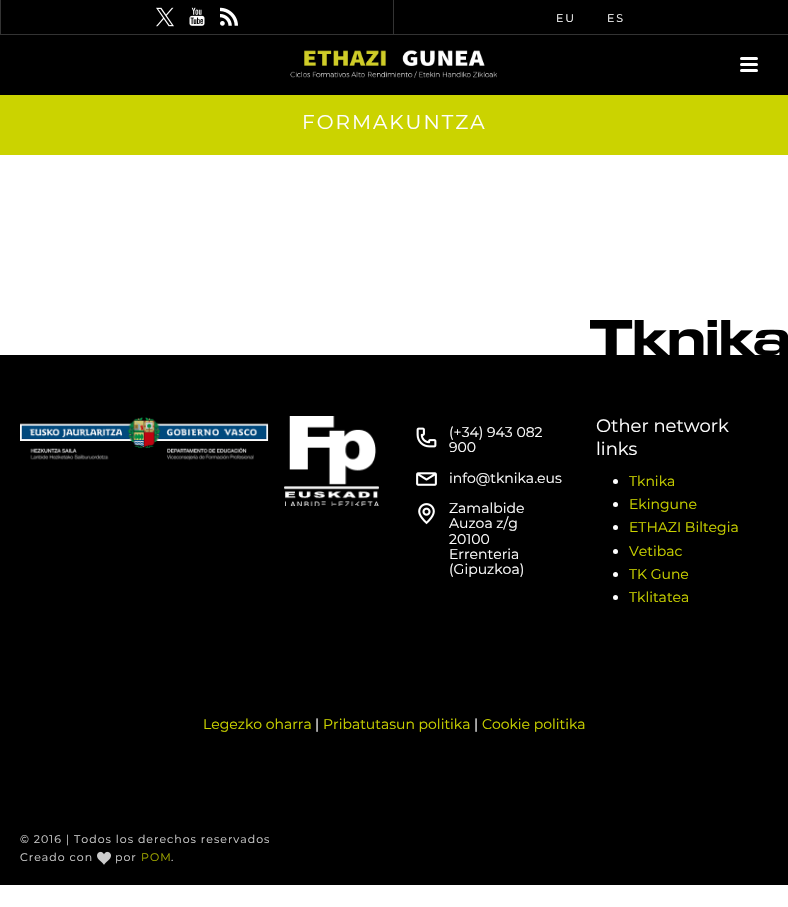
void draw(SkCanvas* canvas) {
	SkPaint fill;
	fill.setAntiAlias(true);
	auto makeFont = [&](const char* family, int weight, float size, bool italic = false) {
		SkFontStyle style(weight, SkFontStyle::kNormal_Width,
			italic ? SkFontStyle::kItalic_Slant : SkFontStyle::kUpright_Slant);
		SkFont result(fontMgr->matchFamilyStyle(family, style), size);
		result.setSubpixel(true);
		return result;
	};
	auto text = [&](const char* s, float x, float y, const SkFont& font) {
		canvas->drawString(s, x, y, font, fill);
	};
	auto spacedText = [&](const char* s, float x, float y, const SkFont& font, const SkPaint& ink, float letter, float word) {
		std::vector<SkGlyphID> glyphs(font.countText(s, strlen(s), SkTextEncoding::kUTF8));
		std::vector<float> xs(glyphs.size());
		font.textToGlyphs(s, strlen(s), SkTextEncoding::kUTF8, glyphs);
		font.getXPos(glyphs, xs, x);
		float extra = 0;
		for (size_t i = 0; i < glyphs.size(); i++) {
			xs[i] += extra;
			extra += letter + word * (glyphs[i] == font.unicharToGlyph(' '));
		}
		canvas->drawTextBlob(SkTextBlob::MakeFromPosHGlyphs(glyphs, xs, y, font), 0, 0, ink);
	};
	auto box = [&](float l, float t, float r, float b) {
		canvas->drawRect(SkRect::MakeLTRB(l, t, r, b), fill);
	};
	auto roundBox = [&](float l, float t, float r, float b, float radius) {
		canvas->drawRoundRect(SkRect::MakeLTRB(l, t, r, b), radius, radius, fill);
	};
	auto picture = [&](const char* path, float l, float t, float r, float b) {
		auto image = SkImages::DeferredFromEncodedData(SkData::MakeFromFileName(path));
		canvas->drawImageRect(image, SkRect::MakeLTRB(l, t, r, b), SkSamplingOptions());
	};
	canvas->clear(0xFFFFFFFF);
	fill.setColor(0xFFCBD300);
	box(0, 95, 788, 155);
	fill.setColor(0xFF000000);
	box(1, 0, 788, 34);
	fill.setColor(0xFF333333);
	box(0, 34, 788, 35);
	box(393, 0, 394, 34);
	box(0, 0, 1, 34);
	picture("image0.png", 156, 7, 174, 27);
	picture("image1.png", 189, 7, 205, 26);
	picture("image2.png", 220, 7, 238, 26);
	fill.setColor(0xFF000000);
	box(0, 35, 788, 95);
	picture("image3.png", 290, 50, 497, 78);
	fill.setColor(0xFFFFFFFF);
	roundBox(740, 57, 758, 60, 1.5f);
	roundBox(740, 63, 758, 66, 1.5f);
	roundBox(740, 69, 758, 72, 1.5f);
	picture("image4.png", 590, 320, 788, 355);
	fill.setColor(0xFF000000);
	box(0, 355, 788, 885);
	picture("image5.png", 20, 417, 269, 461);
	picture("image6.png", 284, 416, 379, 506);
	picture("image7.png", 416, 427, 437, 448);
	picture("image8.png", 416, 472, 437, 486);
	picture("image9.png", 418, 503, 435, 525);
	fill.setColor(0xFFFFFFFF);
	canvas->drawCircle(615.5f, 481.5f, 2.5f, fill);
	canvas->drawCircle(615.5f, 504.5f, 2.5f, fill);
	canvas->drawCircle(615.5f, 527.5f, 2.5f, fill);
	canvas->drawCircle(615.5f, 551.5f, 2.5f, fill);
	canvas->drawCircle(615.5f, 574.5f, 2.5f, fill);
	canvas->drawCircle(615.5f, 597.5f, 2.5f, fill);
	picture("image10.png", 97, 851, 111, 865);
	auto font1 = makeFont("Montserrat", 400, 11);
	spacedText("EU", 556, 22, font1, fill, 2, 0);
	spacedText("ES", 607, 22, font1, fill, 2, 0);
	auto font2 = makeFont("Montserrat", 400, 20);
	spacedText("FORMAKUNTZA", 302, 129, font2, fill, 2, 0);
	auto font3 = makeFont("Montserrat", 400, 14);
	text("(+34) 943 082", 449, 437, font3);
	text("900", 449, 452, font3);
	text("info@tknika.eus", 449, 483, font3);
	text("Zamalbide", 449, 513, font3);
	text("Auzoa z/g", 449, 528, font3);
	text("20100", 449, 544, font3);
	text("Errenteria", 449, 559, font3);
	text("(Gipuzkoa)", 449, 574, font3);
	auto font4 = makeFont("Montserrat", 400, 18);
	text("Other network", 596, 432, font4);
	text("links", 596, 455, font4);
	fill.setColor(0xFFCBD300);
	text("Tknika", 629, 486, font3);
	text("Ekingune", 629, 509, font3);
	text("ETHAZI Biltegia", 629, 532, font3);
	text("Vetibac", 629, 556, font3);
	text("TK Gune", 629, 579, font3);
	text("Tklitatea", 629, 602, font3);
	text("Legezko oharra", 203, 729, font3);
	fill.setColor(0xFFFFFFFF);
	text("|", 315, 729, font3);
	fill.setColor(0xFFCBD300);
	text("Pribatutasun politika", 323, 729, font3);
	fill.setColor(0xFFFFFFFF);
	text("|", 474, 729, font3);
	fill.setColor(0xFFCBD300);
	text("Cookie politika", 482, 729, font3);
	fill.setColor(0xFFCCCCCC);
	spacedText("© 2016 | Todos los derechos reservados", 20, 843, font1, fill, 1, 0);
	spacedText("Creado con", 20, 861, font1, fill, 1, 0);
	spacedText("por", 115, 861, font1, fill, 1, 0);
	fill.setColor(0xFFA2A900);
	spacedText("POM", 141, 861, font1, fill, 1, 0);
	fill.setColor(0xFFCCCCCC);
	spacedText(".", 171, 861, font1, fill, 1, 0);
}
